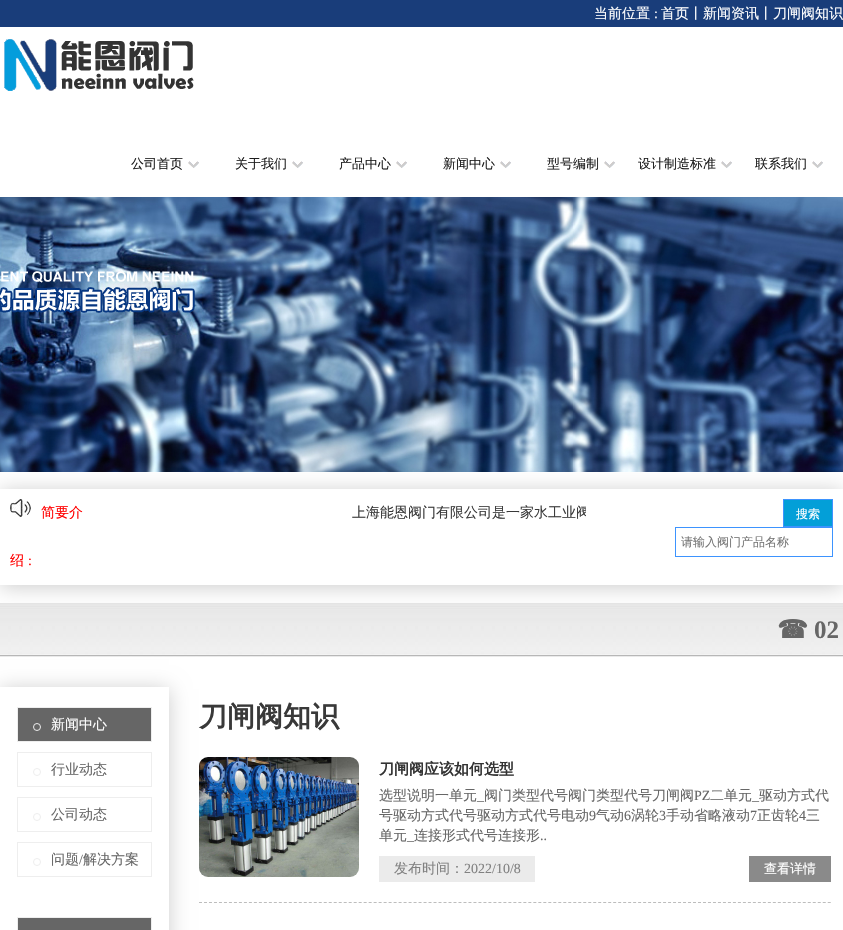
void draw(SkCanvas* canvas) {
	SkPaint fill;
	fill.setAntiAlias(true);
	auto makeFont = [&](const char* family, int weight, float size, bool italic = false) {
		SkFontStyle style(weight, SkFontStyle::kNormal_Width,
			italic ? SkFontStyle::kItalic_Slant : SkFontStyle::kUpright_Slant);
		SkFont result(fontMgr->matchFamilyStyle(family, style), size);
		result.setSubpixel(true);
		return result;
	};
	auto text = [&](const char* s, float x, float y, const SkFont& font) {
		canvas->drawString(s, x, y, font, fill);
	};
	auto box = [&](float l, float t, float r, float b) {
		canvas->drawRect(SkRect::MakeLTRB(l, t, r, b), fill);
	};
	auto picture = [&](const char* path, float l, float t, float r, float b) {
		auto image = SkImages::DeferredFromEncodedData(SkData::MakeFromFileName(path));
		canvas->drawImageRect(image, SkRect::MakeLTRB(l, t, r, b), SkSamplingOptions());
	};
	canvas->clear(0xFFFFFFFF);
	fill.setColor(0xFF193D7A);
	box(0, 0, 843, 27);
	picture("image0.png", 4, 39, 194, 91);
	picture("image1.png", 188, 161, 199, 168);
	picture("image1.png", 292, 161, 303, 168);
	picture("image1.png", 396, 161, 407, 168);
	picture("image1.png", 500, 161, 511, 168);
	picture("image1.png", 604, 161, 615, 168);
	picture("image1.png", 721, 161, 732, 168);
	picture("image1.png", 812, 161, 823, 168);
	canvas->save();
	canvas->clipPath(SkPathBuilder(SkPathFillType::kEvenOdd).moveTo(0, 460).lineTo(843, 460).lineTo(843, 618).lineTo(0, 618).close().moveTo(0, 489).lineTo(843, 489).lineTo(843, 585).lineTo(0, 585).close().detach(), true);
	fill.setColor(0xFFCCCCCC);
	fill.setMaskFilter(SkMaskFilter::MakeBlur(kNormal_SkBlurStyle, 10));
	canvas->drawRect(SkRect::MakeLTRB(0, 491, 843, 587), fill);
	fill.setMaskFilter(nullptr);
	canvas->restore();
	picture("image2.png", 0, 197, 843, 472);
	picture("image3.png", 10, 499, 31, 517);
	fill.setColor(0xFF039FD8);
	canvas->drawRect(SkRect::MakeLTRB(783.5f, 499.5f, 832.5f, 526.5f), fill);
	fill.setStyle(SkPaint::kStroke_Style);
	fill.setStrokeWidth(1);
	fill.setColor(0xFF3D93FE);
	canvas->drawRect(SkRect::MakeLTRB(783.5f, 499.5f, 832.5f, 526.5f), fill);
	canvas->drawRect(SkRect::MakeLTRB(675.5f, 527.5f, 832.5f, 556.5f), fill);
	picture("image4.png", 0, 603, 843, 657);
	canvas->save();
	canvas->clipPath(SkPathBuilder(SkPathFillType::kEvenOdd).moveTo(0, 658).lineTo(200, 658).lineTo(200, 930).lineTo(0, 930).close().moveTo(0, 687).lineTo(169, 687).lineTo(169, 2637).lineTo(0, 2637).close().detach(), true);
	fill.setStyle(SkPaint::kFill_Style);
	fill.setColor(0xFFCCCCCC);
	fill.setMaskFilter(SkMaskFilter::MakeBlur(kNormal_SkBlurStyle, 10));
	canvas->drawRect(SkRect::MakeLTRB(0, 689, 169, 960), fill);
	fill.setMaskFilter(nullptr);
	canvas->restore();
	fill.setColor(0xFF666666);
	canvas->drawRect(SkRect::MakeLTRB(17.5f, 707.5f, 151.5f, 741.5f), fill);
	fill.setStyle(SkPaint::kStroke_Style);
	fill.setColor(0xFFEEEEEE);
	canvas->drawRect(SkRect::MakeLTRB(17.5f, 707.5f, 151.5f, 741.5f), fill);
	canvas->drawCircle(37, 727, 3.5f, fill);
	canvas->drawRect(SkRect::MakeLTRB(17.5f, 752.5f, 151.5f, 786.5f), fill);
	canvas->drawCircle(37, 772, 3.5f, fill);
	canvas->drawRect(SkRect::MakeLTRB(17.5f, 797.5f, 151.5f, 831.5f), fill);
	canvas->drawCircle(37, 817, 3.5f, fill);
	canvas->drawRect(SkRect::MakeLTRB(17.5f, 842.5f, 151.5f, 876.5f), fill);
	canvas->drawCircle(37, 862, 3.5f, fill);
	fill.setStyle(SkPaint::kFill_Style);
	fill.setColor(0xFF666666);
	canvas->drawRect(SkRect::MakeLTRB(17.5f, 917.5f, 151.5f, 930.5f), fill);
	fill.setStyle(SkPaint::kStroke_Style);
	fill.setColor(0xFFEEEEEE);
	canvas->drawRect(SkRect::MakeLTRB(17.5f, 917.5f, 151.5f, 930.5f), fill);
	fill.setColor(0xFFBDBDBD);
	fill.setPathEffect(SkDashPathEffect::Make({{3, 1.99f}}, 0));
	canvas->drawPath(SkPathBuilder().moveTo(199, 902.5f).lineTo(831, 902.5f).detach(), fill);
	fill.setPathEffect(nullptr);
	picture("image5.png", 199, 757, 359, 877);
	fill.setStyle(SkPaint::kFill_Style);
	fill.setColor(0xFFEBEBEB);
	box(379, 856, 535, 882);
	fill.setColor(0xFF8A8A8A);
	box(749, 856, 831, 882);
	auto font1 = makeFont("WenQuanYi Zen Hei", 500, 14);
	fill.setColor(0xFFFFFFFF);
	text("当前位置", 594, 18, font1);
	auto font2 = makeFont("Liberation Serif", 400, 14);
	text(":", 654, 18, font2);
	text("首页丨新闻资讯丨刀闸阀知识", 661, 18, font1);
	auto font3 = makeFont("WenQuanYi Zen Hei", 500, 13);
	fill.setColor(0xFF1C1C1C);
	text("公司首页", 131, 168, font3);
	text("关于我们", 235, 168, font3);
	text("产品中心", 339, 168, font3);
	text("新闻中心", 443, 168, font3);
	text("型号编制", 547, 168, font3);
	text("设计制造标准", 638, 168, font3);
	text("联系我们", 755, 168, font3);
	fill.setColor(0xFFFF0000);
	text("简要介", 41, 517, font1);
	text("绍", 10, 565, font1);
	text(":", 28, 565, font2);
	canvas->save();
	canvas->clipRect(SkRect::MakeLTRB(96, 489, 586, 537));
	fill.setColor(0xFF393939);
	text("上海能恩阀门有限公司是一家水工业阀", 352, 517, font1);
	canvas->restore();
	auto font4 = makeFont("WenQuanYi Zen Hei", 500, 12);
	fill.setColor(0xFFFFFFFF);
	text("搜索", 796, 518, font4);
	fill.setColor(0xFF757575);
	text("请输入阀门产品名称", 681, 546, font4);
	auto font5 = makeFont("DejaVu Sans", 700, 25);
	fill.setColor(0xFF666666);
	text("☎", 777, 638, font5);
	auto font6 = makeFont("Liberation Serif", 700, 25);
	text("02", 814, 638, font6);
	fill.setColor(0xFFFFFFFF);
	text("新闻中心", 51, 729, font1);
	fill.setColor(0xFF666666);
	text("行业动态", 51, 774, font1);
	text("公司动态", 51, 819, font1);
	text("问题", 51, 864, font1);
	text("/", 79, 864, font2);
	text("解决方案", 83, 864, font1);
	auto font7 = makeFont("WenQuanYi Zen Hei", 700, 28);
	fill.setColor(0xFF393939);
	text("刀闸阀知识", 199, 726, font7);
	auto font8 = makeFont("WenQuanYi Zen Hei", 700, 15);
	fill.setColor(0xFF333333);
	text("刀闸阀应该如何选型", 379, 774, font8);
	fill.setColor(0xFF666666);
	text("选型说明一单元", 379, 800, font1);
	text("阀门类型代号阀门类型代号刀闸阀", 484, 800, font1);
	text("PZ", 694, 800, font2);
	text("二单元", 710, 800, font1);
	text("_", 477, 800, font2);
	text("_", 752, 800, font2);
	text("驱动方式代", 759, 800, font1);
	text("号驱动方式代号驱动方式代号电动", 379, 820, font1);
	text("9", 589, 820, font2);
	text("气动", 596, 820, font1);
	text("6", 624, 820, font2);
	text("涡轮", 631, 820, font1);
	text("3", 659, 820, font2);
	text("手动省略液动", 666, 820, font1);
	text("7", 750, 820, font2);
	text("正齿轮", 757, 820, font1);
	text("4", 799, 820, font2);
	text("三", 806, 820, font1);
	text("单元", 379, 840, font1);
	text("..", 540, 840, font2);
	text("_", 407, 840, font2);
	text("连接形式代号连接形", 414, 840, font1);
	fill.setColor(0xFF818181);
	text("发布时间：", 394, 873, font1);
	text("2022/10/8", 464, 873, font2);
	fill.setColor(0xFFFFFFFF);
	text("查看详情", 764, 873, font3);
}
